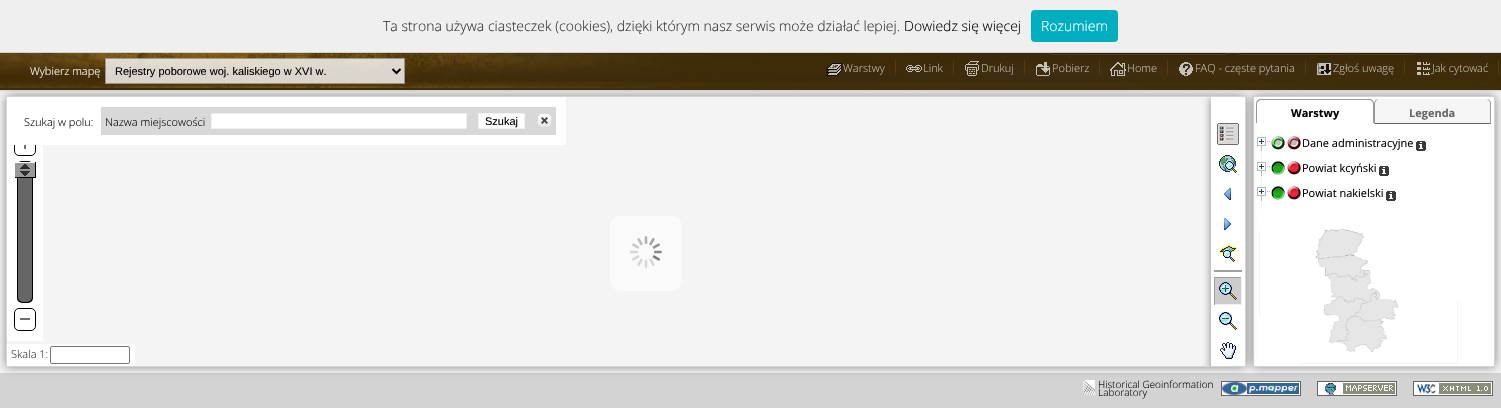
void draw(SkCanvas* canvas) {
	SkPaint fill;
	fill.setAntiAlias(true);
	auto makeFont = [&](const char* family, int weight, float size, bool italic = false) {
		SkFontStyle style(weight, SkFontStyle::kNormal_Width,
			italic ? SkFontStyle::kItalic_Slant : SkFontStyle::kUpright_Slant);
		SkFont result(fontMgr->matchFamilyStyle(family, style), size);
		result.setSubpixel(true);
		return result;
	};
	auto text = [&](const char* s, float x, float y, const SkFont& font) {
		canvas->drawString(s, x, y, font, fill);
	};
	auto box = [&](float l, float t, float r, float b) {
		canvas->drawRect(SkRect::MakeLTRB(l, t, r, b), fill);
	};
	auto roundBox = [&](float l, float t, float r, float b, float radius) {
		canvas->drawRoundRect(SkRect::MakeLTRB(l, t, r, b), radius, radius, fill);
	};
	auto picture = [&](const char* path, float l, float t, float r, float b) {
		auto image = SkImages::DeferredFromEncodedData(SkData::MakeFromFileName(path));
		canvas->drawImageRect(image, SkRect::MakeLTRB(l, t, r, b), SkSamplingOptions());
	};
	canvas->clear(0xFFF4F4F4);
	picture("image0.png", 0, 53, 1501, 96);
	fill.setColor(0x4D000000);
	canvas->drawRoundRect(SkRect::MakeLTRB(1048.5f, 12.5f, 1229.5f, 54.5f), 4.5f, 4.5f, fill);
	fill.setStyle(SkPaint::kStroke_Style);
	fill.setStrokeWidth(1);
	fill.setColor(0xFF563F15);
	canvas->drawRoundRect(SkRect::MakeLTRB(1048.5f, 12.5f, 1229.5f, 54.5f), 4.5f, 4.5f, fill);
	fill.setStyle(SkPaint::kFill_Style);
	fill.setColor(0x4D000000);
	canvas->drawRoundRect(SkRect::MakeLTRB(1236.5f, 12.5f, 1417.5f, 54.5f), 4.5f, 4.5f, fill);
	fill.setStyle(SkPaint::kStroke_Style);
	fill.setColor(0xFF563F15);
	canvas->drawRoundRect(SkRect::MakeLTRB(1236.5f, 12.5f, 1417.5f, 54.5f), 4.5f, 4.5f, fill);
	fill.setStyle(SkPaint::kFill_Style);
	fill.setColor(0xFFEFEFEF);
	box(0, 0, 1501, 52);
	fill.setColor(0xFFD3D0D0);
	box(0, 52, 1501, 53);
	fill.setColor(0xFF00AFBF);
	roundBox(1031, 10, 1118, 42, 4);
	fill.setColor(0xCCFFFFFF);
	box(105, 58, 405, 84);
	fill.setStyle(SkPaint::kStroke_Style);
	fill.setColor(0x66323232);
	canvas->drawRect(SkRect::MakeLTRB(105.5f, 58.5f, 404.5f, 83.5f), fill);
	fill.setStrokeWidth(2);
	fill.setColor(0xFF000000);
	canvas->drawPath(SkPathBuilder().moveTo(392.5f, 69).lineTo(396.5f, 73).lineTo(400.5f, 69).detach(), fill);
	picture("image1.png", 826, 63, 842, 76);
	fill.setStyle(SkPaint::kFill_Style);
	fill.setColor(0xB35F4310);
	box(895, 60, 896, 75);
	picture("image2.png", 906, 65, 922, 72);
	box(953, 60, 954, 75);
	picture("image3.png", 965, 61, 979, 76);
	box(1024, 60, 1025, 75);
	picture("image4.png", 1036, 62, 1050, 76);
	box(1099, 60, 1100, 75);
	picture("image5.png", 1110, 62, 1126, 76);
	box(1167, 60, 1168, 75);
	picture("image6.png", 1179, 62, 1193, 76);
	box(1305, 60, 1306, 75);
	picture("image7.png", 1316, 62, 1332, 76);
	box(1404, 60, 1405, 75);
	picture("image8.png", 1417, 62, 1430, 75);
	fill.setColor(0xFF553C0E);
	box(1498, 60, 1499, 75);
	fill.setColor(0xFFD3D3D3);
	box(0, 373, 1501, 408);
	picture("image29.png", 1221, 381, 1301, 396);
	picture("image30.png", 1317, 381, 1397, 396);
	picture("image31.png", 1413, 381, 1493, 396);
	fill.setColor(0x8F323232);
	fill.setMaskFilter(SkMaskFilter::MakeBlur(kNormal_SkBlurStyle, 5));
	canvas->drawRect(SkRect::MakeLTRB(1253, 96, 1495, 367), fill);
	fill.setMaskFilter(nullptr);
	fill.setStyle(SkPaint::kStroke_Style);
	fill.setStrokeWidth(1);
	fill.setColor(0xFFD3D3D3);
	canvas->drawRect(SkRect::MakeLTRB(1253.5f, 96.5f, 1494.5f, 366.5f), fill);
	fill.setStyle(SkPaint::kFill_Style);
	fill.setColor(0xFFFFFFFF);
	box(1254, 97, 1494, 366);
	fill.setColor(0xFF999999);
	canvas->drawPath(SkPathBuilder(SkPathFillType::kEvenOdd).moveTo(1261, 99).lineTo(1369, 99).cubicTo(1372, 99, 1374, 101, 1374, 104).lineTo(1374, 123).lineTo(1256, 123).lineTo(1256, 104).cubicTo(1256, 101, 1258, 99, 1261, 99).close().moveTo(1261, 100).lineTo(1369, 100).cubicTo(1371, 100, 1373, 102, 1373, 104).lineTo(1373, 123).lineTo(1257, 123).lineTo(1257, 104).cubicTo(1257, 102, 1259, 100, 1261, 100).close().detach(), fill);
	picture("image28.png", 1083, 380, 1095, 395);
	canvas->save();
	canvas->clipPath(SkPathBuilder(SkPathFillType::kEvenOdd).moveTo(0, 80).lineTo(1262, 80).lineTo(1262, 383).lineTo(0, 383).close().moveTo(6, 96).lineTo(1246, 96).lineTo(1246, 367).lineTo(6, 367).close().detach(), true);
	fill.setColor(0x8F323232);
	fill.setMaskFilter(SkMaskFilter::MakeBlur(kNormal_SkBlurStyle, 5));
	canvas->drawRect(SkRect::MakeLTRB(6, 96, 1246, 367), fill);
	fill.setMaskFilter(nullptr);
	canvas->restore();
	fill.setStyle(SkPaint::kStroke_Style);
	fill.setColor(0xFFD3D3D3);
	canvas->drawRect(SkRect::MakeLTRB(6.5f, 96.5f, 1245.5f, 366.5f), fill);
	fill.setStyle(SkPaint::kFill_Style);
	fill.setColor(0xFFFFFFFF);
	box(7, 145, 43, 341);
	fill.setStyle(SkPaint::kStroke_Style);
	fill.setColor(0xFF000000);
	canvas->drawRoundRect(SkRect::MakeLTRB(14.5f, 133.5f, 35.5f, 155.5f), 4.5f, 4.5f, fill);
	fill.setStyle(SkPaint::kFill_Style);
	fill.setColor(0xFFFFFFFF);
	box(7, 97, 566, 145);
	fill.setColor(0xFFD8D8D8);
	box(101, 107, 556, 135);
	fill.setColor(0xFFFFFFFF);
	canvas->drawRect(SkRect::MakeLTRB(211.5f, 113.5f, 466.5f, 128.5f), fill);
	fill.setStyle(SkPaint::kStroke_Style);
	fill.setColor(0xFFF0F0F0);
	canvas->drawRect(SkRect::MakeLTRB(211.5f, 113.5f, 466.5f, 128.5f), fill);
	fill.setStyle(SkPaint::kFill_Style);
	fill.setColor(0xFFFFFFFF);
	canvas->drawRect(SkRect::MakeLTRB(478.5f, 113.5f, 524.5f, 128.5f), fill);
	fill.setStyle(SkPaint::kStroke_Style);
	fill.setColor(0xFFF0F0F0);
	canvas->drawRect(SkRect::MakeLTRB(478.5f, 113.5f, 524.5f, 128.5f), fill);
	picture("image9.png", 538, 114, 551, 127);
	fill.setStyle(SkPaint::kFill_Style);
	fill.setColor(0xFFF2F2F2);
	box(1261, 132, 1262, 209);
	picture("image21.png", 1257, 137, 1270, 151);
	picture("image21.png", 1257, 162, 1270, 176);
	picture("image21.png", 1257, 187, 1270, 201);
	canvas->save();
	canvas->clipRect(SkRect::MakeLTRB(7, 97, 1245, 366));
	fill.setColor(0x8F323232);
	fill.setMaskFilter(SkMaskFilter::MakeBlur(kNormal_SkBlurStyle, 5));
	canvas->drawRoundRect(SkRect::MakeLTRB(1211, 97, 1245, 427), 4, 4, fill);
	fill.setMaskFilter(nullptr);
	canvas->restore();
	fill.setColor(0xFFFFFFFF);
	box(1211, 97, 1245, 366);
	picture("image10.png", 1217, 123, 1239, 145);
	picture("image11.png", 1219, 155, 1237, 173);
	picture("image12.png", 1224, 188, 1231, 200);
	picture("image13.png", 1224, 218, 1231, 230);
	picture("image14.png", 1219, 245, 1237, 262);
	fill.setColor(0xFFA0A0A0);
	box(1214, 270, 1242, 272);
	fill.setColor(0xFFCCCCCC);
	box(1215, 278, 1241, 304);
	fill.setColor(0xFF9F9F9F);
	box(1214, 277, 1242, 278);
	fill.setColor(0xFFEEEEEE);
	box(1241, 277, 1242, 305);
	box(1214, 304, 1242, 305);
	fill.setColor(0xFF9F9F9F);
	box(1214, 277, 1215, 305);
	picture("image15.png", 1219, 282, 1237, 300);
	picture("image16.png", 1219, 312, 1237, 330);
	picture("image17.png", 1220, 342, 1236, 359);
	picture("image18.png", 24, 145, 26, 149);
	fill.setColor(0xFF000000);
	roundBox(17, 161, 33, 303, 5);
	fill.setColor(0xFF666666);
	roundBox(18, 162, 32, 302, 5);
	fill.setColor(0xFFFFFFFF);
	box(14, 162, 36, 163);
	fill.setColor(0xFF000000);
	box(35, 162, 36, 178);
	box(14, 177, 36, 178);
	fill.setColor(0xFFFFFFFF);
	box(14, 177, 15, 178);
	fill.setColor(0xFF999999);
	box(15, 163, 35, 177);
	picture("image19.png", 20, 164, 30, 176);
	fill.setStyle(SkPaint::kStroke_Style);
	fill.setColor(0xFF000000);
	canvas->drawRoundRect(SkRect::MakeLTRB(14.5f, 308.5f, 35.5f, 330.5f), 4.5f, 4.5f, fill);
	fill.setStyle(SkPaint::kFill_Style);
	fill.setColor(0xFF6F6F6F);
	box(20, 318, 30, 320);
	fill.setColor(0xFFFAFAFA);
	roundBox(610, 216, 682, 291, 10);
	picture("image20.png", 630, 236, 662, 268);
	fill.setColor(0xFFFFFFFF);
	box(7, 344, 135, 366);
	fill.setStyle(SkPaint::kStroke_Style);
	fill.setColor(0xFF767676);
	canvas->drawRoundRect(SkRect::MakeLTRB(50.5f, 346.5f, 129.5f, 363.5f), 1.5f, 1.5f, fill);
	fill.setStyle(SkPaint::kFill_Style);
	fill.setColor(0xFFF5F5F5);
	canvas->drawPath(SkPathBuilder().moveTo(1379, 99).lineTo(1486, 99).cubicTo(1489, 99, 1491, 101, 1491, 104).lineTo(1491, 124).lineTo(1374, 124).lineTo(1374, 104).cubicTo(1374, 101, 1376, 99, 1379, 99).close().detach(), fill);
	fill.setColor(0xFF999999);
	canvas->drawPath(SkPathBuilder().moveTo(1491, 104).cubicTo(1491, 101, 1489, 99, 1486, 99).cubicTo(1488, 99, 1490, 101, 1490, 104).lineTo(1490, 123).lineTo(1491, 124).close().detach(), fill);
	fill.setColor(0xFF666666);
	canvas->drawPath(SkPathBuilder().moveTo(1491, 124).lineTo(1374, 124).lineTo(1375, 123).lineTo(1490, 123).close().detach(), fill);
	fill.setColor(0xFF999999);
	canvas->drawPath(SkPathBuilder().moveTo(1379, 99).cubicTo(1376, 99, 1374, 101, 1374, 104).lineTo(1374, 124).lineTo(1375, 123).lineTo(1375, 104).cubicTo(1375, 101, 1377, 99, 1379, 99).close().detach(), fill);
	picture("image22.png", 1271, 136, 1285, 150);
	picture("image23.png", 1287, 136, 1301, 150);
	picture("image24.png", 1416, 141, 1426, 151);
	picture("image25.png", 1271, 161, 1285, 175);
	picture("image26.png", 1287, 161, 1301, 175);
	picture("image24.png", 1379, 166, 1389, 176);
	picture("image25.png", 1271, 186, 1285, 200);
	picture("image26.png", 1287, 186, 1301, 200);
	picture("image24.png", 1386, 191, 1396, 201);
	picture("image27.png", 1259, 228, 1458, 364);
	auto font1 = makeFont("Open Sans", 300, 14);
	fill.setColor(0xFF333333);
	text("Ta strona używa ciasteczek (cookies), dzięki którym nasz serwis może działać lepiej.", 383, 31, font1);
	fill.setColor(0xFF000000);
	text("Dowiedz się więcej", 904, 31, font1);
	fill.setColor(0xFFFFFFFF);
	text("Rozumiem", 1041, 31, font1);
	auto font2 = makeFont("Open Sans", 300, 11);
	text("Wybierz mapę", 30, 75, font2);
	auto font3 = makeFont("Liberation Sans", 400, 11);
	fill.setColor(0xFF000000);
	text("Rejestry poborowe woj. kaliskiego w XVI w.", 115, 75, font3);
	fill.setColor(0xFFC5BFB6);
	text("Warstwy", 843, 72, font2);
	text("Link", 923, 72, font2);
	text("Drukuj", 981, 72, font2);
	text("Pobierz", 1052, 72, font2);
	text("Home", 1127, 72, font2);
	text("FAQ - częste pytania", 1195, 72, font2);
	text("Zgłoś uwagę", 1333, 72, font2);
	text("Jak cytować", 1432, 72, font2);
	fill.setColor(0xFF000000);
	text("Szukaj w polu:", 24, 126, font2);
	text("Nazwa miejscowości", 105, 126, font2);
	text("Szukaj", 485, 125, font3);
	fill.setColor(0xFF333333);
	text("Skala 1:", 11, 358, font2);
	auto font4 = makeFont("Open Sans", 700, 11);
	fill.setColor(0xFF000000);
	text("Warstwy", 1291, 117, font4);
	fill.setColor(0xFF666666);
	text("Legenda", 1409, 117, font4);
	auto font5 = makeFont("Open Sans", 400, 11);
	fill.setColor(0xFF000000);
	text("Dane administracyjne", 1302, 147, font5);
	text("Powiat kcyński", 1302, 172, font5);
	text("Powiat nakielski", 1302, 197, font5);
	auto font6 = makeFont("Open Sans", 300, 10);
	text("Historical Geoinformation", 1098, 388, font6);
	text("Laboratory", 1098, 396, font6);
}
